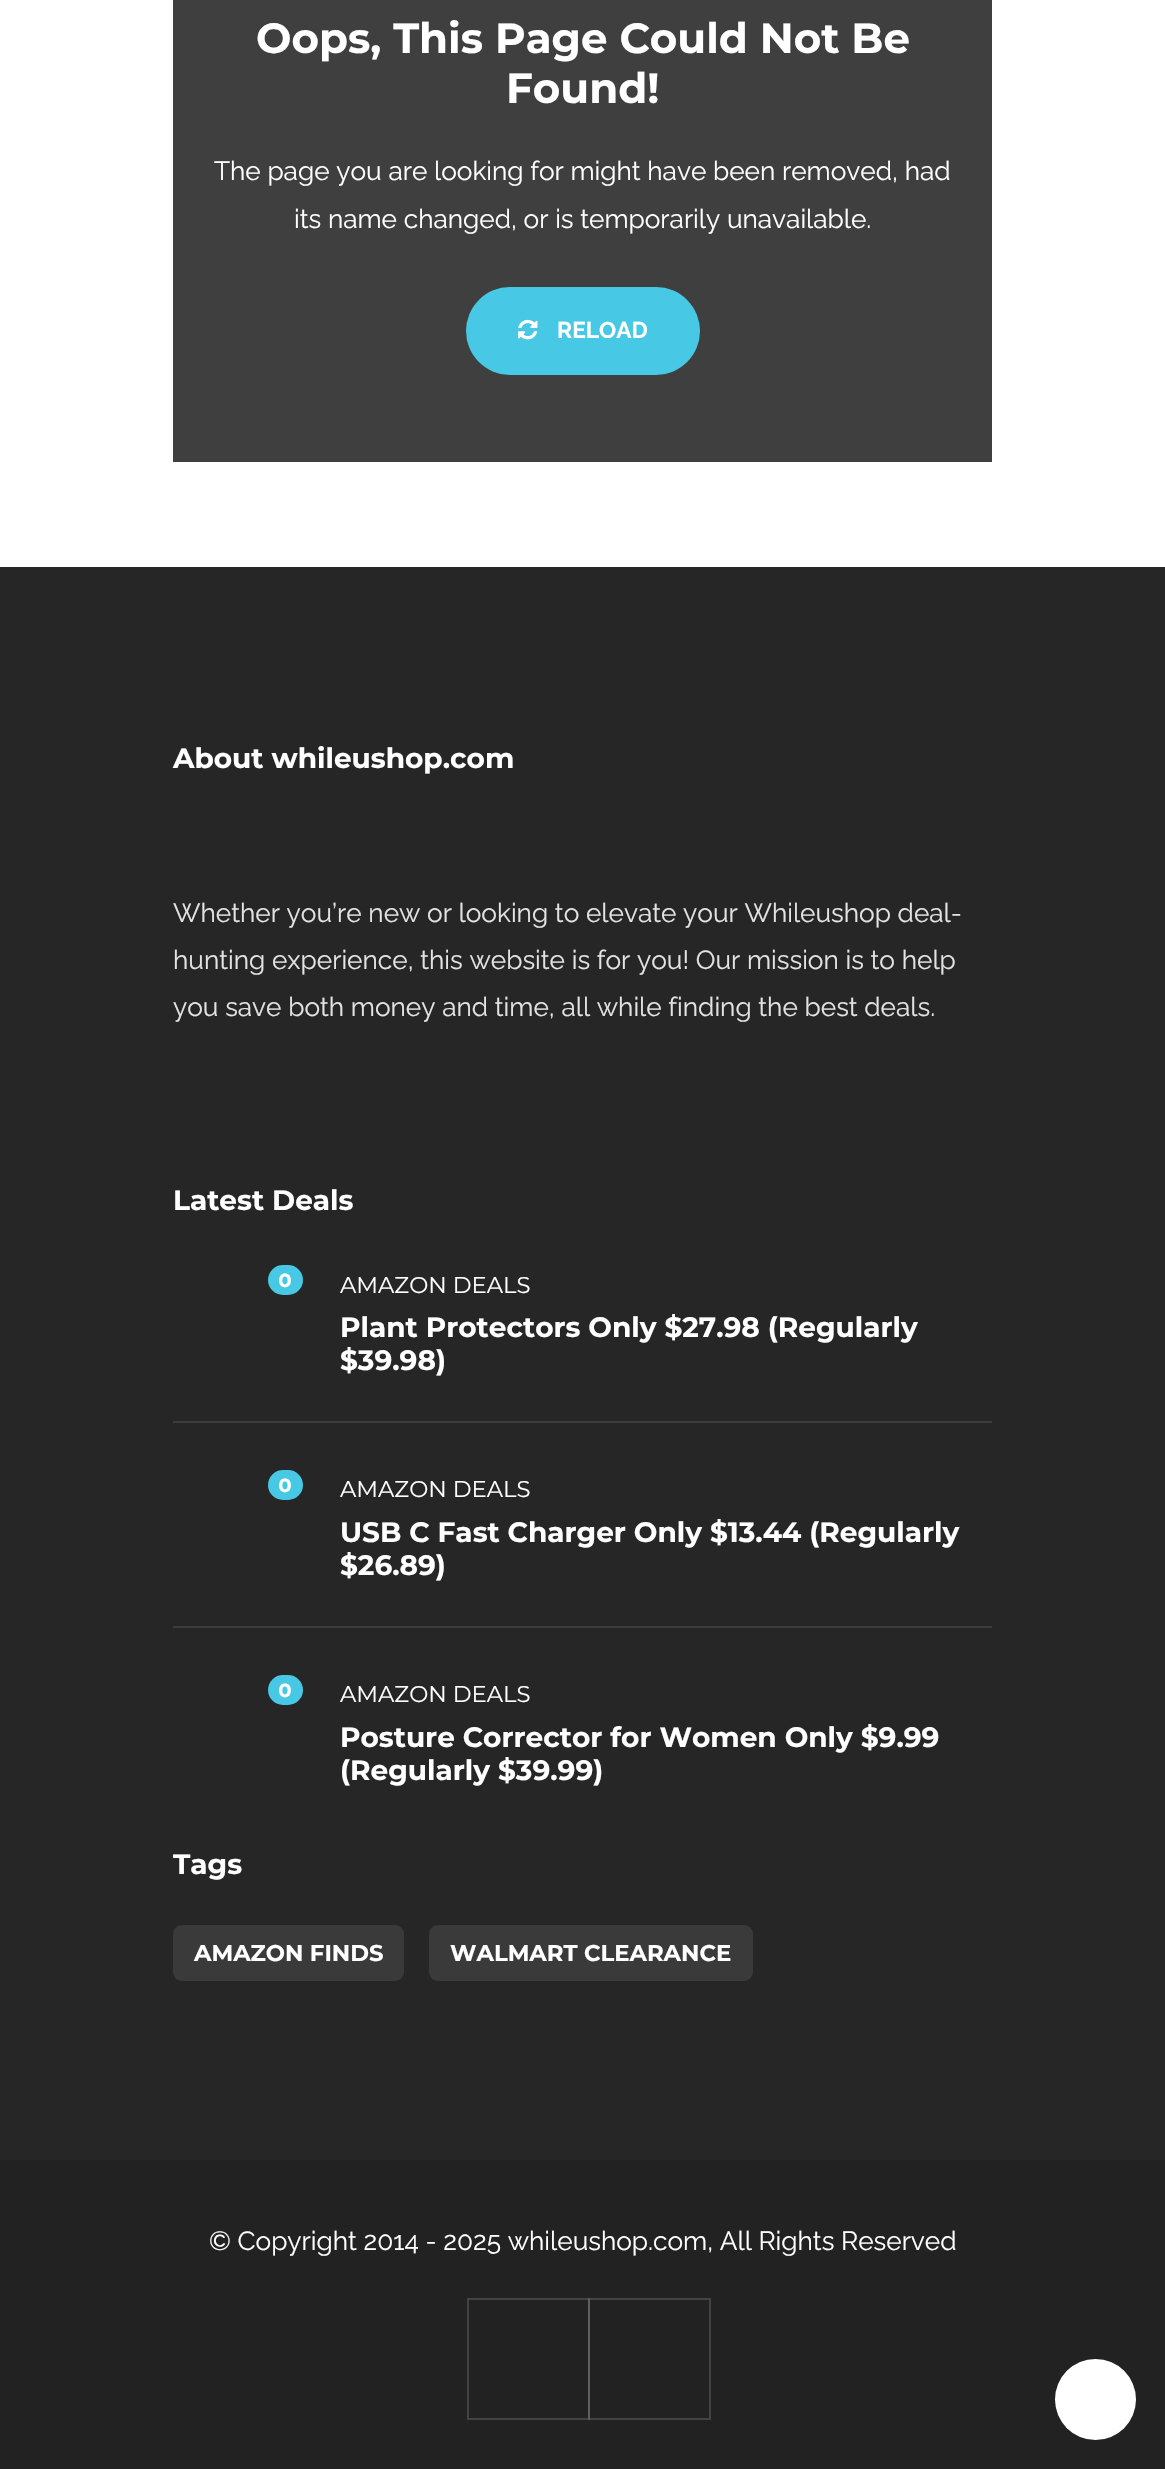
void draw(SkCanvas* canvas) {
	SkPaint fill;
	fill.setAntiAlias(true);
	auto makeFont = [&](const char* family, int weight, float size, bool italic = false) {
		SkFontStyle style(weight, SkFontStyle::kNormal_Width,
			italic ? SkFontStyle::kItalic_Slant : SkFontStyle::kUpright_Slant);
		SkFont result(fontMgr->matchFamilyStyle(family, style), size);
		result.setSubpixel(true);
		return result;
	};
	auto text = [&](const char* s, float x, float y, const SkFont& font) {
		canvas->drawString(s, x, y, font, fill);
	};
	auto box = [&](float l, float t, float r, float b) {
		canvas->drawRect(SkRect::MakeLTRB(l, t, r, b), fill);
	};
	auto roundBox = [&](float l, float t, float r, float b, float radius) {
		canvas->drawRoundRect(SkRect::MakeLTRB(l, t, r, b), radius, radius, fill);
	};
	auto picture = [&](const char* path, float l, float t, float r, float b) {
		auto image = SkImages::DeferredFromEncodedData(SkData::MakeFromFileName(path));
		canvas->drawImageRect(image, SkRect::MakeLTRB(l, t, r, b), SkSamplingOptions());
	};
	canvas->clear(0xFFFFFFFF);
	fill.setColor(0xFF3F3F3F);
	box(173, 0, 992, 462);
	fill.setColor(0xFF47C9E5);
	roundBox(466, 287, 700, 375, 44);
	picture("image0.png", 518, 319, 538, 340);
	fill.setColor(0xFF262626);
	box(0, 567, 1165, 2160);
	fill.setColor(0xFF3C3C3C);
	box(173, 1421, 992, 1423);
	fill.setColor(0xFF47C9E5);
	roundBox(268, 1265, 303, 1295, 15);
	fill.setColor(0xFF3C3C3C);
	box(173, 1626, 992, 1628);
	fill.setColor(0xFF47C9E5);
	roundBox(268, 1470, 303, 1500, 15);
	roundBox(268, 1675, 303, 1705, 15);
	fill.setColor(0xFF3A3A3A);
	roundBox(173, 1925, 404, 1981, 9);
	roundBox(429, 1925, 753, 1981, 9);
	fill.setColor(0xFF222222);
	box(0, 2160, 1165, 2469);
	fill.setStyle(SkPaint::kStroke_Style);
	fill.setStrokeWidth(2);
	fill.setColor(0xFF434343);
	canvas->drawRect(SkRect::MakeLTRB(468, 2299, 589, 2419), fill);
	fill.setColor(0x26FFFFFF);
	canvas->drawRect(SkRect::MakeLTRB(589, 2299, 710, 2419), fill);
	fill.setStyle(SkPaint::kFill_Style);
	fill.setColor(0xFFFFFFFF);
	canvas->drawCircle(1095.5f, 2399.5f, 40.5f, fill);
	auto font1 = makeFont("Montserrat", 100, 42);
	text("Oops, This Page Could Not Be", 256, 53, font1);
	text("Found!", 506, 103, font1);
	auto font2 = makeFont("Raleway", 100, 26.25f);
	text("The page you are looking for might have been removed, had", 214, 180, font2);
	text("its name changed, or is temporarily unavailable.", 294, 228, font2);
	auto font3 = makeFont("Raleway", 700, 22.75f);
	text("RELOAD", 557, 338, font3);
	auto font4 = makeFont("Montserrat", 100, 28);
	text("About whileushop.com", 173, 768, font4);
	fill.setColor(0xFFE3E3E3);
	text("Whether you’re new or looking to elevate your Whileushop deal-", 173, 922, font2);
	text("hunting experience, this website is for you! Our mission is to help", 173, 969, font2);
	text("you save both money and time, all while finding the best deals.", 173, 1016, font2);
	fill.setColor(0xFFFFFFFF);
	text("Latest Deals", 173, 1210, font4);
	text("0", 278, 1287, font3);
	auto font5 = makeFont("Montserrat", 400, 22.75f);
	text("AMAZON DEALS", 340, 1293, font5);
	text("Plant Protectors Only $27.98 (Regularly", 340, 1337, font4);
	text("$39.98)", 340, 1370, font4);
	text("0", 278, 1492, font3);
	text("AMAZON DEALS", 340, 1497, font5);
	text("USB C Fast Charger Only $13.44 (Regularly", 340, 1542, font4);
	text("$26.89)", 340, 1575, font4);
	text("0", 278, 1697, font3);
	text("AMAZON DEALS", 340, 1702, font5);
	text("Posture Corrector for Women Only $9.99", 340, 1747, font4);
	text("(Regularly $39.99)", 340, 1780, font4);
	text("Tags", 173, 1874, font4);
	auto font6 = makeFont("Montserrat", 100, 22.75f);
	text("AMAZON FINDS", 194, 1961, font6);
	text("WALMART CLEARANCE", 450, 1961, font6);
	text("© Copyright 2014 - 2025 whileushop.com, All Rights Reserved", 209, 2250, font2);
}
